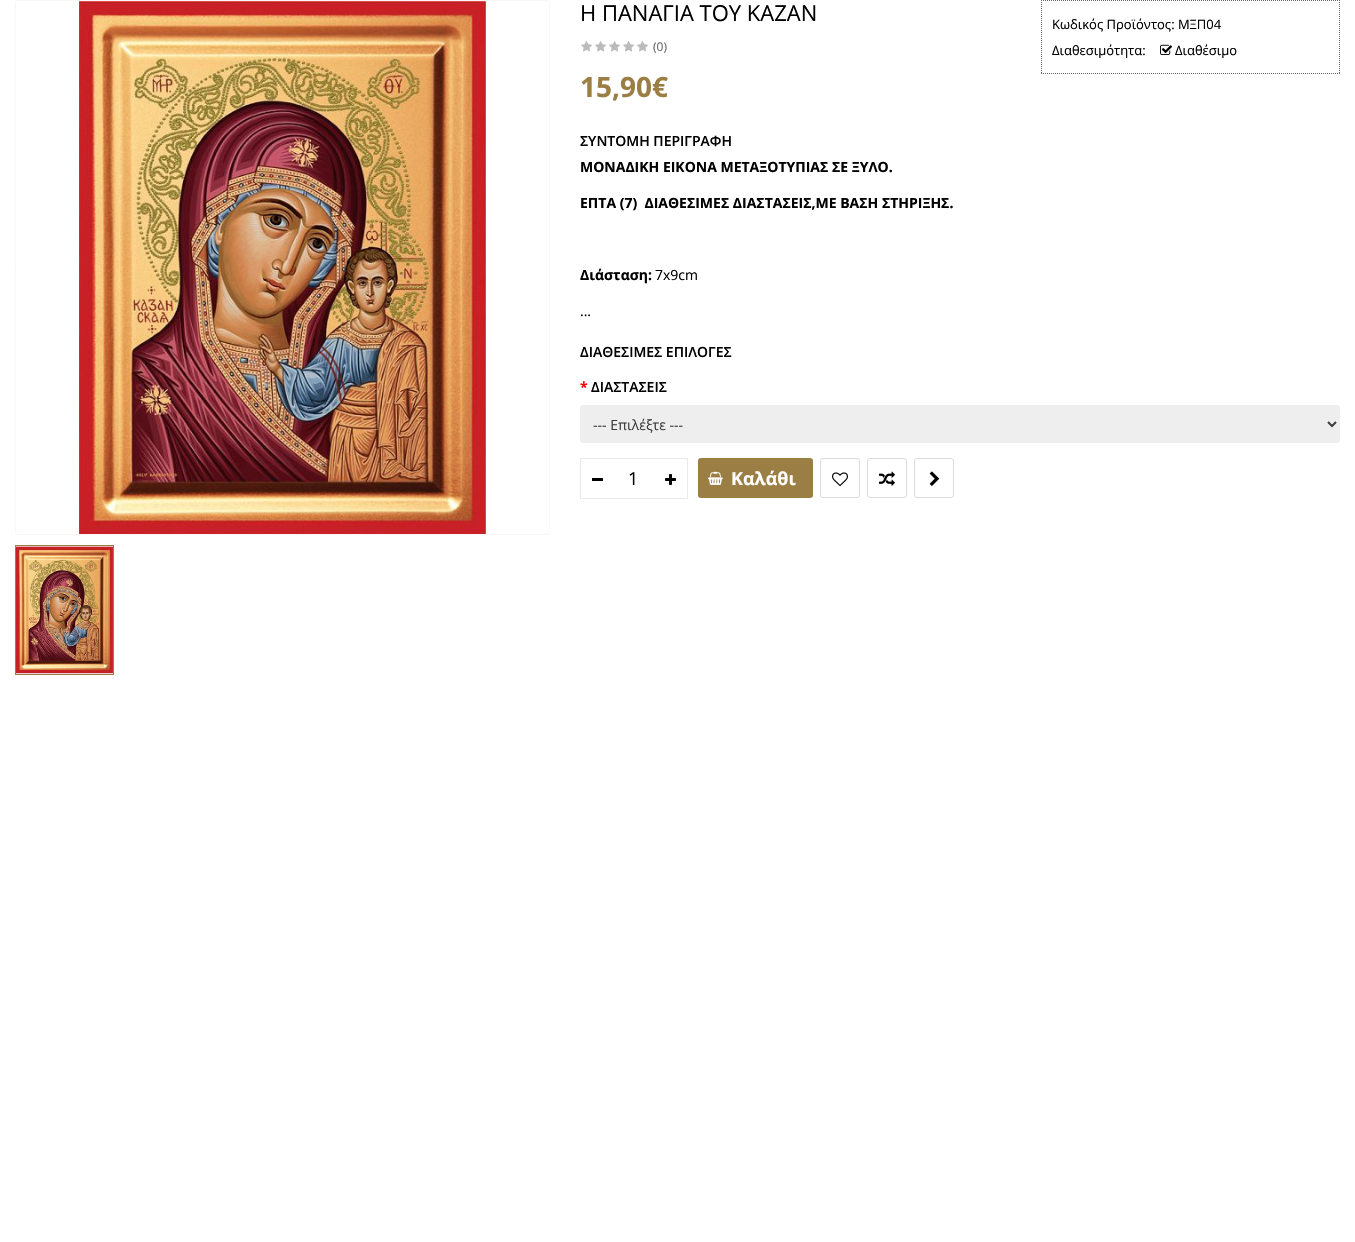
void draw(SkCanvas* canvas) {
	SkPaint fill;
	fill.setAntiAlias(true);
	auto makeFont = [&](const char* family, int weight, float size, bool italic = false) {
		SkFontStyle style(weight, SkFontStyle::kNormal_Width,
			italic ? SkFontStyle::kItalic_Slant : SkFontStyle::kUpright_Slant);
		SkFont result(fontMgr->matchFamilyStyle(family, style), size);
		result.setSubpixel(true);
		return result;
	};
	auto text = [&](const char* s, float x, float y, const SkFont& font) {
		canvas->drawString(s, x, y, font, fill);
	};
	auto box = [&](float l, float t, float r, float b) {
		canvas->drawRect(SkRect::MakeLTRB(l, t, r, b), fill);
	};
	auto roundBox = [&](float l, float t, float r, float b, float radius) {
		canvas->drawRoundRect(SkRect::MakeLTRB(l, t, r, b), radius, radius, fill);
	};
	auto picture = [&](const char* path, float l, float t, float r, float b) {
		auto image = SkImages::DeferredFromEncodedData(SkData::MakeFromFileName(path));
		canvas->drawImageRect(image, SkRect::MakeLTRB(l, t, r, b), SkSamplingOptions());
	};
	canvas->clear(0xFFFFFFFF);
	fill.setStyle(SkPaint::kStroke_Style);
	fill.setStrokeWidth(1);
	fill.setColor(0xFFF7F7F7);
	canvas->drawRoundRect(SkRect::MakeLTRB(15.5f, 0.5f, 549.5f, 534.5f), 2.5f, 2.5f, fill);
	picture("image0.png", 79, 1, 487, 534);
	fill.setColor(0xFF9B7E44);
	canvas->drawRect(SkRect::MakeLTRB(15.5f, 545.5f, 113.5f, 674.5f), fill);
	picture("image1.png", 16, 546, 113, 674);
	picture("image2.png", 581, 41, 592, 52);
	picture("image2.png", 595, 41, 606, 52);
	picture("image2.png", 609, 41, 620, 52);
	picture("image2.png", 623, 41, 634, 52);
	picture("image2.png", 637, 41, 648, 52);
	fill.setColor(0xFF676767);
	fill.setPathEffect(SkDashPathEffect::Make({{1, 1}}, 0));
	canvas->drawPath(SkPathBuilder().moveTo(1041, 0.5f).lineTo(1340, 0.5f).detach(), fill);
	fill.setPathEffect(nullptr);
	fill.setPathEffect(SkDashPathEffect::Make({{1, 1}}, 0));
	canvas->drawPath(SkPathBuilder().moveTo(1339.5f, 0).lineTo(1339.5f, 74).detach(), fill);
	fill.setPathEffect(nullptr);
	fill.setPathEffect(SkDashPathEffect::Make({{1, 1}}, 0));
	canvas->drawPath(SkPathBuilder().moveTo(1041, 73.5f).lineTo(1340, 73.5f).detach(), fill);
	fill.setPathEffect(nullptr);
	fill.setPathEffect(SkDashPathEffect::Make({{1, 1}}, 0));
	canvas->drawPath(SkPathBuilder().moveTo(1041.5f, 0).lineTo(1041.5f, 74).detach(), fill);
	fill.setPathEffect(nullptr);
	picture("image3.png", 1160, 44, 1172, 55);
	fill.setStyle(SkPaint::kFill_Style);
	fill.setColor(0xFFEEEEEE);
	roundBox(580, 405, 1340, 443, 3);
	fill.setStyle(SkPaint::kStroke_Style);
	fill.setStrokeWidth(2);
	fill.setColor(0xFF3D3D3D);
	canvas->drawPath(SkPathBuilder().moveTo(1328, 422).lineTo(1332, 426).lineTo(1336, 422).detach(), fill);
	fill.setStrokeWidth(1);
	fill.setColor(0xFFEAEAEA);
	canvas->drawRect(SkRect::MakeLTRB(580.5f, 458.5f, 687.5f, 498.5f), fill);
	fill.setStyle(SkPaint::kFill_Style);
	fill.setColor(0xFF000000);
	box(592, 478, 603, 481);
	picture("image4.png", 665, 474, 676, 485);
	fill.setColor(0xFF9B7E44);
	roundBox(698, 458, 813, 498, 3);
	picture("image5.png", 708, 471, 723, 485);
	fill.setStyle(SkPaint::kStroke_Style);
	fill.setColor(0xFFDCDCDC);
	canvas->drawRoundRect(SkRect::MakeLTRB(820.5f, 458.5f, 859.5f, 497.5f), 2.5f, 2.5f, fill);
	picture("image6.png", 832, 472, 848, 487);
	canvas->drawRoundRect(SkRect::MakeLTRB(867.5f, 458.5f, 906.5f, 497.5f), 2.5f, 2.5f, fill);
	picture("image7.png", 879, 471, 895, 486);
	canvas->drawRoundRect(SkRect::MakeLTRB(914.5f, 458.5f, 953.5f, 497.5f), 2.5f, 2.5f, fill);
	picture("image8.png", 929, 471, 939, 486);
	auto font1 = makeFont("Open Sans", 400, 22);
	fill.setStyle(SkPaint::kFill_Style);
	fill.setColor(0xFF000000);
	text("Η ΠΑΝΑΓΙΑ ΤΟΥ ΚΑΖΑΝ", 580, 21, font1);
	auto font2 = makeFont("Open Sans", 400, 12);
	fill.setColor(0xFF666666);
	text("(0)", 653, 51, font2);
	auto font3 = makeFont("Open Sans", 700, 28);
	fill.setColor(0xFF9B7E44);
	text("15,90€", 580, 97, font3);
	auto font4 = makeFont("Open Sans", 400, 13);
	fill.setColor(0xFF000000);
	text("Κωδικός Προϊόντος: ΜΞΠ04", 1052, 29, font4);
	text("Διαθεσιμότητα:", 1052, 55, font4);
	text("Διαθέσιμο", 1175, 55, font4);
	auto font5 = makeFont("Open Sans", 600, 14);
	text("ΣΥΝΤΟΜΗ ΠΕΡΙΓΡΑΦΗ", 580, 146, font5);
	auto font6 = makeFont("Open Sans", 700, 14);
	text("ΜΟΝΑΔΙΚΗ ΕΙΚΟΝΑ ΜΕΤΑΞΟΤΥΠΙΑΣ ΣΕ ΞΥΛΟ.", 580, 172, font6);
	text("ΕΠΤΑ (7)  ΔΙΑΘΕΣΙΜΕΣ ΔΙΑΣΤΑΣΕΙΣ,ΜΕ ΒΑΣΗ ΣΤΗΡΙΞΗΣ.", 580, 208, font6);
	text("Διάσταση:", 580, 280, font6);
	auto font7 = makeFont("Open Sans", 400, 14);
	text("7x9cm", 655, 280, font7);
	text("...", 580, 316, font7);
	text("ΔΙΑΘΕΣΙΜΕΣ ΕΠΙΛΟΓΕΣ", 580, 357, font5);
	fill.setColor(0xFFFF0000);
	text("*", 580, 392, font6);
	fill.setColor(0xFF000000);
	text("ΔΙΑΣΤΑΣΕΙΣ", 591, 392, font5);
	fill.setColor(0xFF3D3D3D);
	text("--- Επιλέξτε ---", 593, 430, font7);
	auto font8 = makeFont("Open Sans", 400, 18);
	fill.setColor(0xFF000000);
	text("1", 628, 485, font8);
	auto font9 = makeFont("Open Sans", 700, 18);
	fill.setColor(0xFFFFFFFF);
	text("Καλάθι", 731, 485, font9);
}
